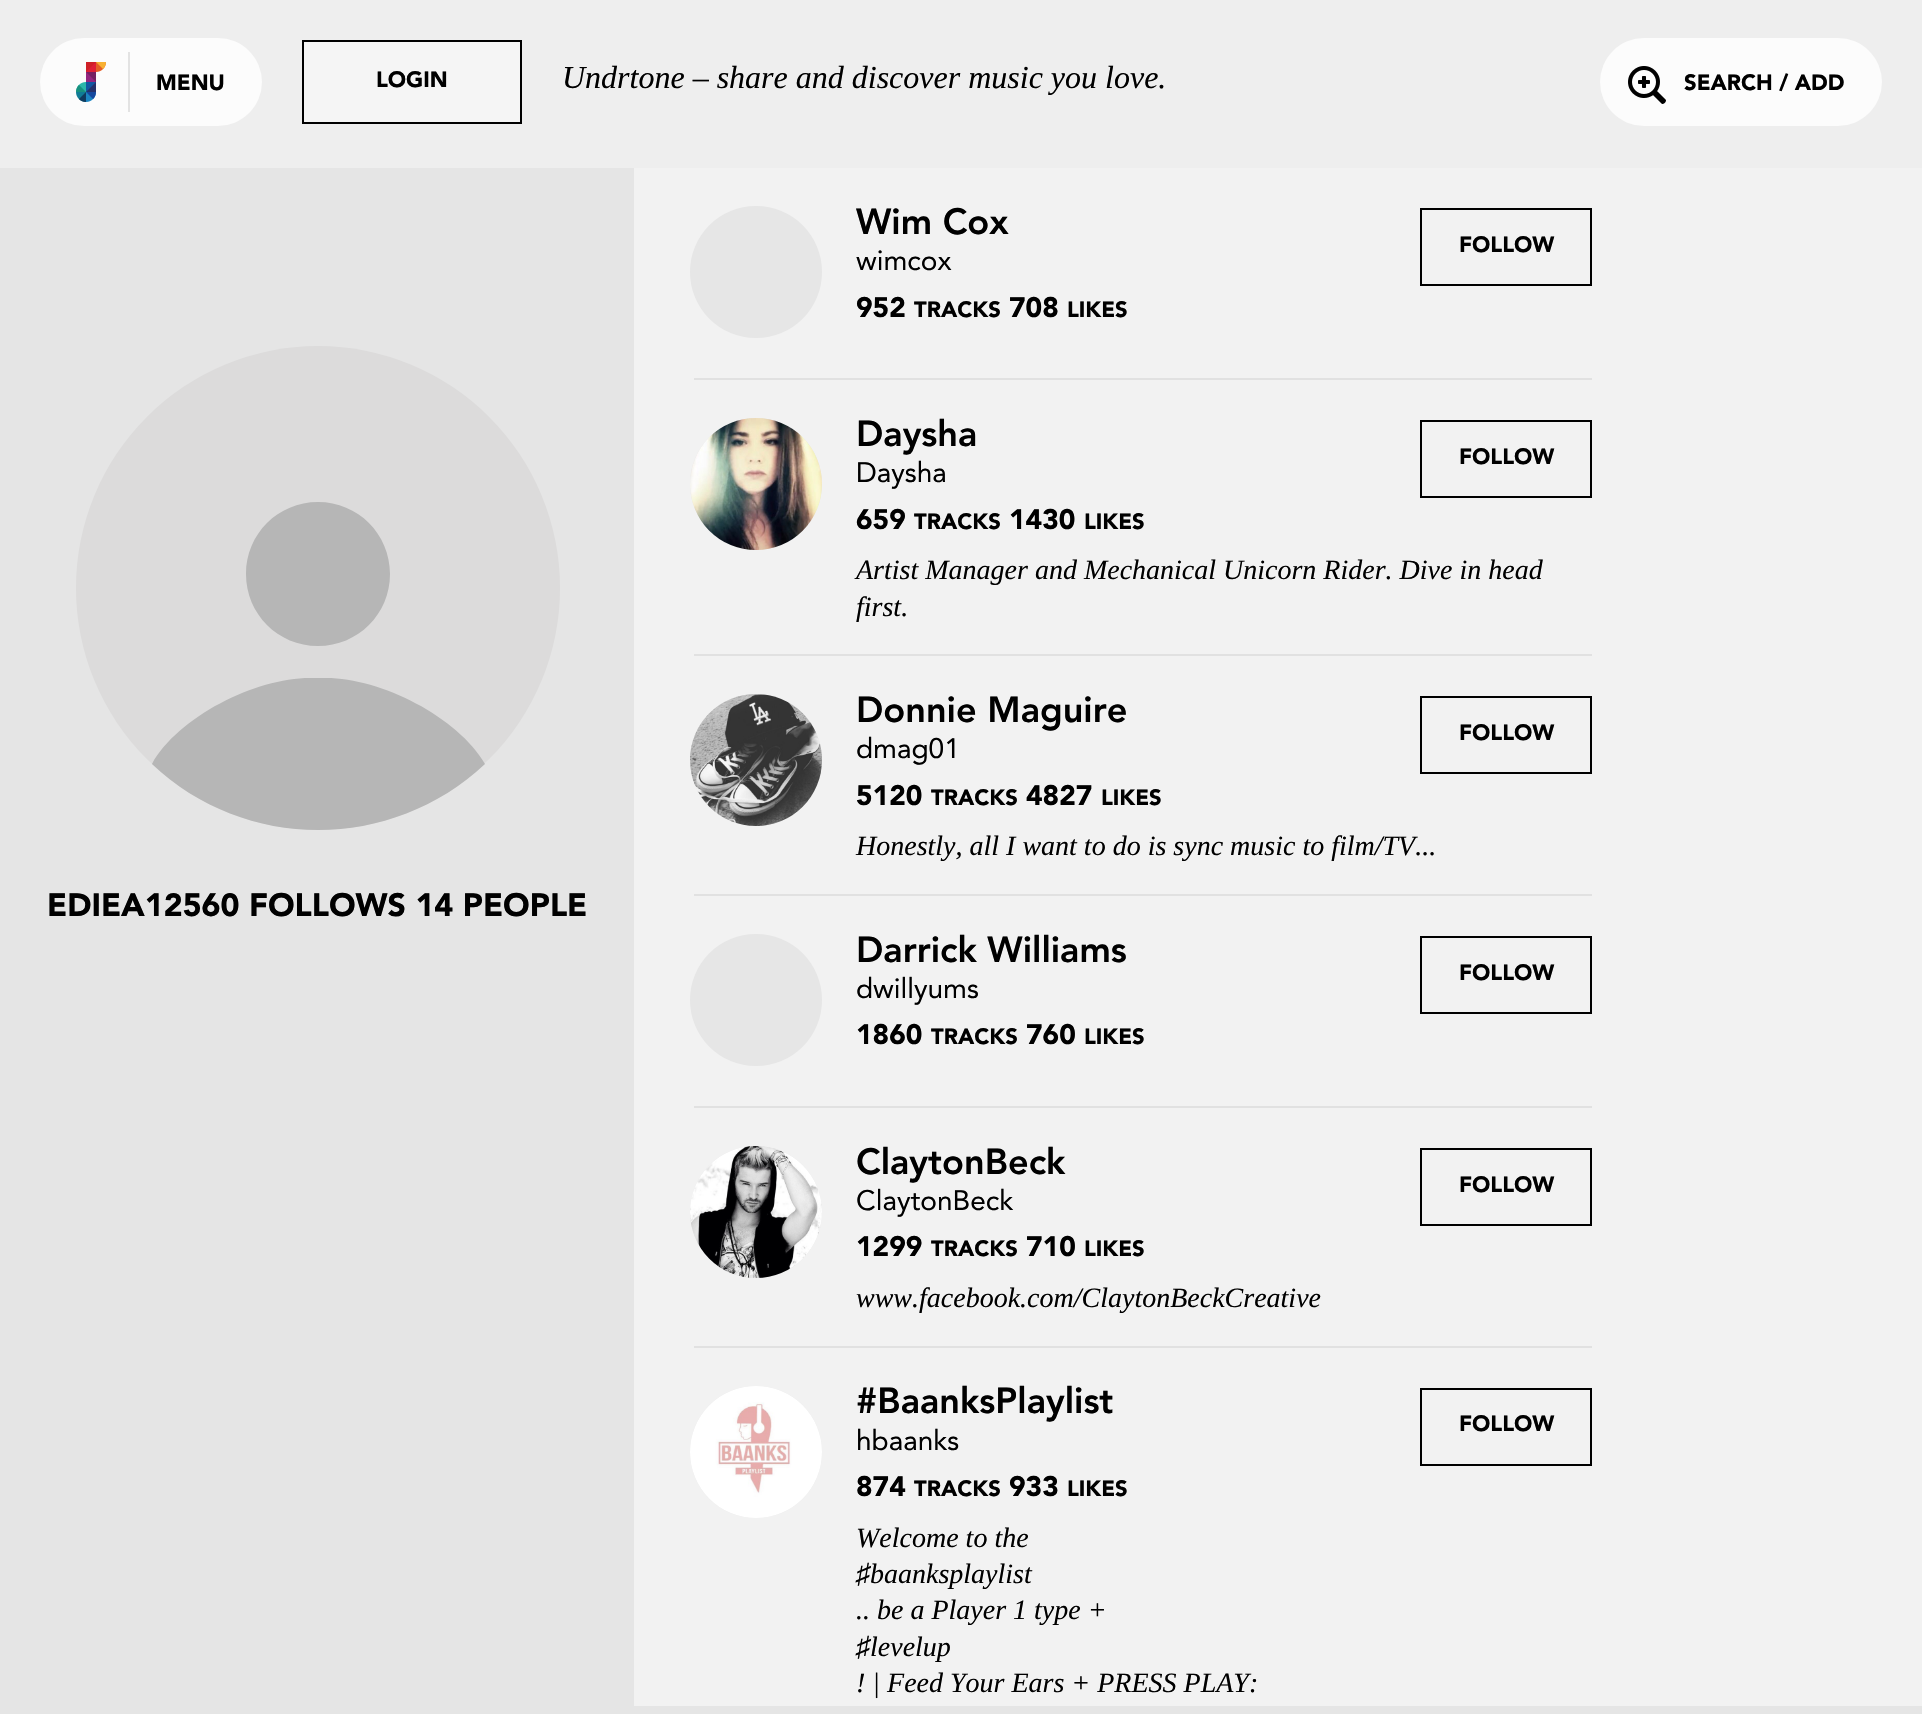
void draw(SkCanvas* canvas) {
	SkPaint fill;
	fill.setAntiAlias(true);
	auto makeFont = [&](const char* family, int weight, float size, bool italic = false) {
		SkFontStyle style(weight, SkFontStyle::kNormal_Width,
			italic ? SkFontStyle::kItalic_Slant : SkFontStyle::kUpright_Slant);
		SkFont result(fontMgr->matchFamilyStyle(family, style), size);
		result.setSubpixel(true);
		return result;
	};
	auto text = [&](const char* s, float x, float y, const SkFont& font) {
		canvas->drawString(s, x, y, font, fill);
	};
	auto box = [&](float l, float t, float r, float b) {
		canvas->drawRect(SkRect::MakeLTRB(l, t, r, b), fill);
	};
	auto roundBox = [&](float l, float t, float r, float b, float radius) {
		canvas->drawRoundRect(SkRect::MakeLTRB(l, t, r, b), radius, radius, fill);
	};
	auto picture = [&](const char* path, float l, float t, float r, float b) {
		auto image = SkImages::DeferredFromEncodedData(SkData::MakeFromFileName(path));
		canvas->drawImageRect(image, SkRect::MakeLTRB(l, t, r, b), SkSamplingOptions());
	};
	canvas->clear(0xFFF2F2F2);
	fill.setColor(0xFFEEEEEE);
	box(0, 0, 1922, 168);
	fill.setColor(0xFFFCFCFC);
	roundBox(40, 38, 262, 126, 44);
	picture("image0.png", 76, 62, 106, 102);
	fill.setColor(0xFFE3E3E3);
	box(128, 52, 130, 112);
	fill.setColor(0xFFF5F5F5);
	canvas->drawRect(SkRect::MakeLTRB(303, 41, 521, 123), fill);
	fill.setStyle(SkPaint::kStroke_Style);
	fill.setStrokeWidth(2);
	fill.setColor(0xFF000000);
	canvas->drawRect(SkRect::MakeLTRB(303, 41, 521, 123), fill);
	fill.setStyle(SkPaint::kFill_Style);
	fill.setColor(0xFFFCFCFC);
	roundBox(1600, 38, 1882, 126, 44);
	picture("image1.png", 1628, 66, 1666, 104);
	fill.setColor(0xFFE5E5E5);
	box(0, 168, 634, 1706);
	fill.setColor(0xFFDCDBDB);
	canvas->drawCircle(318, 588, 242, fill);
	fill.setColor(0xFFB6B6B6);
	canvas->drawPath(SkPathBuilder(SkPathFillType::kEvenOdd).moveTo(326, 678).cubicTo(381, 678, 458, 717, 485, 764).cubicTo(391, 852, 245, 852, 152, 764).cubicTo(178, 717, 255, 678, 310, 678).close().moveTo(318, 646).cubicTo(278, 646, 246, 614, 246, 574).cubicTo(246, 534, 278, 502, 318, 502).cubicTo(358, 502, 390, 534, 390, 574).cubicTo(390, 614, 358, 646, 318, 646).close().detach(), fill);
	fill.setColor(0xFFE6E6E6);
	canvas->drawCircle(756, 272, 66, fill);
	fill.setStyle(SkPaint::kStroke_Style);
	fill.setColor(0xFF000000);
	canvas->drawRect(SkRect::MakeLTRB(1421, 209, 1591, 285), fill);
	fill.setStyle(SkPaint::kFill_Style);
	fill.setColor(0xFFE1E1E1);
	box(694, 378, 1592, 380);
	fill.setColor(0xFFE6E6E6);
	canvas->drawCircle(756, 484, 66, fill);
	picture("image2.png", 690, 418, 822, 550);
	fill.setStyle(SkPaint::kStroke_Style);
	fill.setColor(0xFF000000);
	canvas->drawRect(SkRect::MakeLTRB(1421, 421, 1591, 497), fill);
	fill.setStyle(SkPaint::kFill_Style);
	fill.setColor(0xFFE1E1E1);
	box(694, 654, 1592, 656);
	fill.setColor(0xFFE6E6E6);
	canvas->drawCircle(756, 760, 66, fill);
	picture("image3.png", 690, 694, 822, 826);
	fill.setStyle(SkPaint::kStroke_Style);
	fill.setColor(0xFF000000);
	canvas->drawRect(SkRect::MakeLTRB(1421, 697, 1591, 773), fill);
	fill.setStyle(SkPaint::kFill_Style);
	fill.setColor(0xFFE1E1E1);
	box(694, 894, 1592, 896);
	fill.setColor(0xFFE6E6E6);
	canvas->drawCircle(756, 1000, 66, fill);
	fill.setStyle(SkPaint::kStroke_Style);
	fill.setColor(0xFF000000);
	canvas->drawRect(SkRect::MakeLTRB(1421, 937, 1591, 1013), fill);
	fill.setStyle(SkPaint::kFill_Style);
	fill.setColor(0xFFE1E1E1);
	box(694, 1106, 1592, 1108);
	fill.setColor(0xFFE6E6E6);
	canvas->drawCircle(756, 1212, 66, fill);
	picture("image4.png", 690, 1146, 822, 1278);
	fill.setStyle(SkPaint::kStroke_Style);
	fill.setColor(0xFF000000);
	canvas->drawRect(SkRect::MakeLTRB(1421, 1149, 1591, 1225), fill);
	fill.setStyle(SkPaint::kFill_Style);
	fill.setColor(0xFFE1E1E1);
	box(694, 1346, 1592, 1348);
	fill.setColor(0xFFE6E6E6);
	canvas->drawCircle(756, 1452, 66, fill);
	picture("image5.png", 690, 1386, 822, 1518);
	fill.setStyle(SkPaint::kStroke_Style);
	fill.setColor(0xFF000000);
	canvas->drawRect(SkRect::MakeLTRB(1421, 1389, 1591, 1465), fill);
	fill.setStyle(SkPaint::kFill_Style);
	fill.setColor(0xFFE5E5E5);
	box(0, 1706, 1922, 1714);
	auto font1 = makeFont("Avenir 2", 900, 22);
	fill.setColor(0xFF000000);
	text("MENU", 156, 90, font1);
	text("LOGIN", 376, 87, font1);
	auto font2 = makeFont("Liberation Serif", 400, 32, true);
	text("Undrtone – share and discover music you love.", 562, 88, font2);
	text("SEARCH / ADD", 1684, 90, font1);
	auto font3 = makeFont("Avenir 2", 900, 32);
	text("EDIEA12560 FOLLOWS 14 PEOPLE", 47, 916, font3);
	auto font4 = makeFont("Avenir", 900, 36);
	text("Wim Cox", 856, 234, font4);
	auto font5 = makeFont("Avenir", 400, 28);
	text("wimcox", 856, 270, font5);
	auto font6 = makeFont("Avenir 2", 900, 28);
	text("952", 856, 317, font6);
	text("TRACKS", 914, 317, font1);
	text("708", 1009, 317, font6);
	text("LIKES", 1067, 317, font1);
	text("FOLLOW", 1459, 252, font1);
	text("Daysha", 856, 446, font4);
	text("Daysha", 856, 482, font5);
	text("659", 856, 529, font6);
	text("TRACKS", 914, 529, font1);
	text("1430", 1009, 529, font6);
	text("LIKES", 1084, 529, font1);
	text("FOLLOW", 1459, 464, font1);
	auto font7 = makeFont("Liberation Serif", 400, 28, true);
	text("Artist Manager and Mechanical Unicorn Rider. Dive in head", 856, 579, font7);
	text("first.", 856, 616, font7);
	text("Donnie Maguire", 856, 722, font4);
	text("dmag01", 856, 758, font5);
	text("5120", 856, 805, font6);
	text("TRACKS", 931, 805, font1);
	text("4827", 1026, 805, font6);
	text("LIKES", 1101, 805, font1);
	text("FOLLOW", 1459, 740, font1);
	text("Honestly, all I want to do is sync music to film/TV...", 856, 855, font7);
	text("Darrick Williams", 856, 962, font4);
	text("dwillyums", 856, 998, font5);
	text("1860", 856, 1044, font6);
	text("TRACKS", 931, 1044, font1);
	text("760", 1026, 1044, font6);
	text("LIKES", 1084, 1044, font1);
	text("FOLLOW", 1459, 980, font1);
	text("ClaytonBeck", 856, 1174, font4);
	text("ClaytonBeck", 856, 1210, font5);
	text("1299", 856, 1256, font6);
	text("TRACKS", 931, 1256, font1);
	text("710", 1026, 1256, font6);
	text("LIKES", 1084, 1256, font1);
	text("FOLLOW", 1459, 1192, font1);
	text("www.facebook.com/ClaytonBeckCreative", 856, 1307, font7);
	text("#BaanksPlaylist", 856, 1413, font4);
	text("hbaanks", 856, 1450, font5);
	text("874", 856, 1496, font6);
	text("TRACKS", 914, 1496, font1);
	text("933", 1009, 1496, font6);
	text("LIKES", 1067, 1496, font1);
	text("FOLLOW", 1459, 1431, font1);
	text("Welcome to the", 856, 1547, font7);
	text("♯baanksplaylist", 856, 1583, font7);
	text(".. be a Player 1 type +", 856, 1619, font7);
	text("♯levelup", 856, 1656, font7);
	text("! | Feed Your Ears + PRESS PLAY:", 856, 1692, font7);
}
